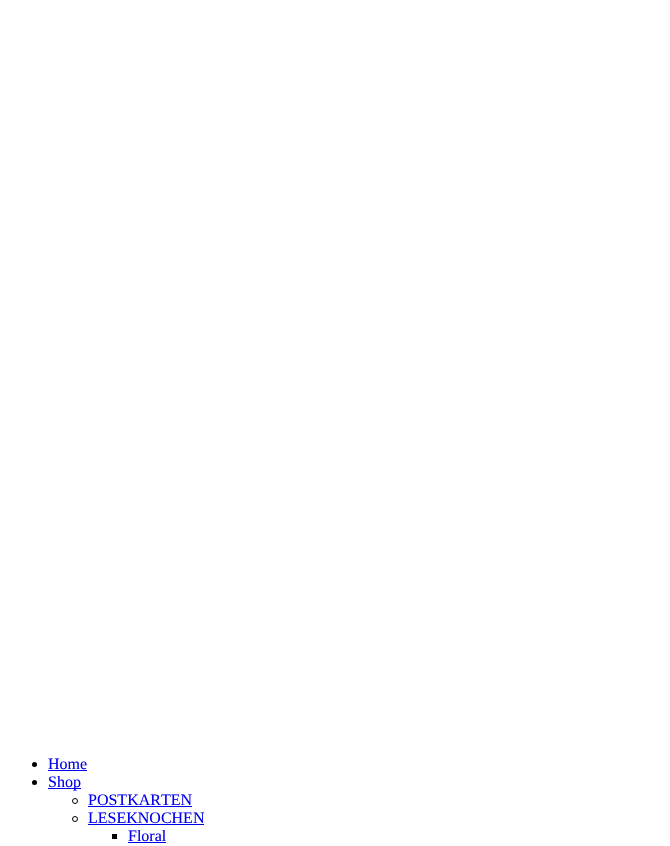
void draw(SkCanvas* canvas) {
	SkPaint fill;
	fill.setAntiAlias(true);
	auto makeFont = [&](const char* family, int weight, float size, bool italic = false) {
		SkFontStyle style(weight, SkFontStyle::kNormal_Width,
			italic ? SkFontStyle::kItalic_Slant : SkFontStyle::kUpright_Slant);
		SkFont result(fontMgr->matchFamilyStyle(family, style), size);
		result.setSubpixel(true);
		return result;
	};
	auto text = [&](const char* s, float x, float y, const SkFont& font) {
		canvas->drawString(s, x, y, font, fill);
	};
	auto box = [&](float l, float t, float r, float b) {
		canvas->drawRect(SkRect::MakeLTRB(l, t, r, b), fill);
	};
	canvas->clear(0xFFFFFFFF);
	fill.setColor(0xFF000000);
	canvas->drawCircle(34.5f, 764.5f, 2.5f, fill);
	fill.setColor(0xFF0000EE);
	box(48, 770, 87, 771);
	fill.setColor(0xFF000000);
	canvas->drawCircle(34.5f, 782.5f, 2.5f, fill);
	fill.setColor(0xFF0000EE);
	box(48, 788, 81, 789);
	fill.setStyle(SkPaint::kStroke_Style);
	fill.setStrokeWidth(1);
	fill.setColor(0xFF000000);
	canvas->drawCircle(75, 801, 2.5f, fill);
	fill.setStyle(SkPaint::kFill_Style);
	fill.setColor(0xFF0000EE);
	box(88, 806, 192, 807);
	fill.setStyle(SkPaint::kStroke_Style);
	fill.setColor(0xFF000000);
	canvas->drawCircle(75, 819, 2.5f, fill);
	fill.setStyle(SkPaint::kFill_Style);
	fill.setColor(0xFF0000EE);
	box(88, 824, 204, 825);
	fill.setColor(0xFF000000);
	box(112, 834, 117, 839);
	fill.setColor(0xFF0000EE);
	box(128, 842, 166, 843);
	auto font1 = makeFont("Liberation Serif", 400, 16);
	text("Home", 48, 769, font1);
	text("Shop", 48, 787, font1);
	text("POSTKARTEN", 88, 805, font1);
	text("LESEKNOCHEN", 88, 823, font1);
	text("Floral", 128, 841, font1);
}
